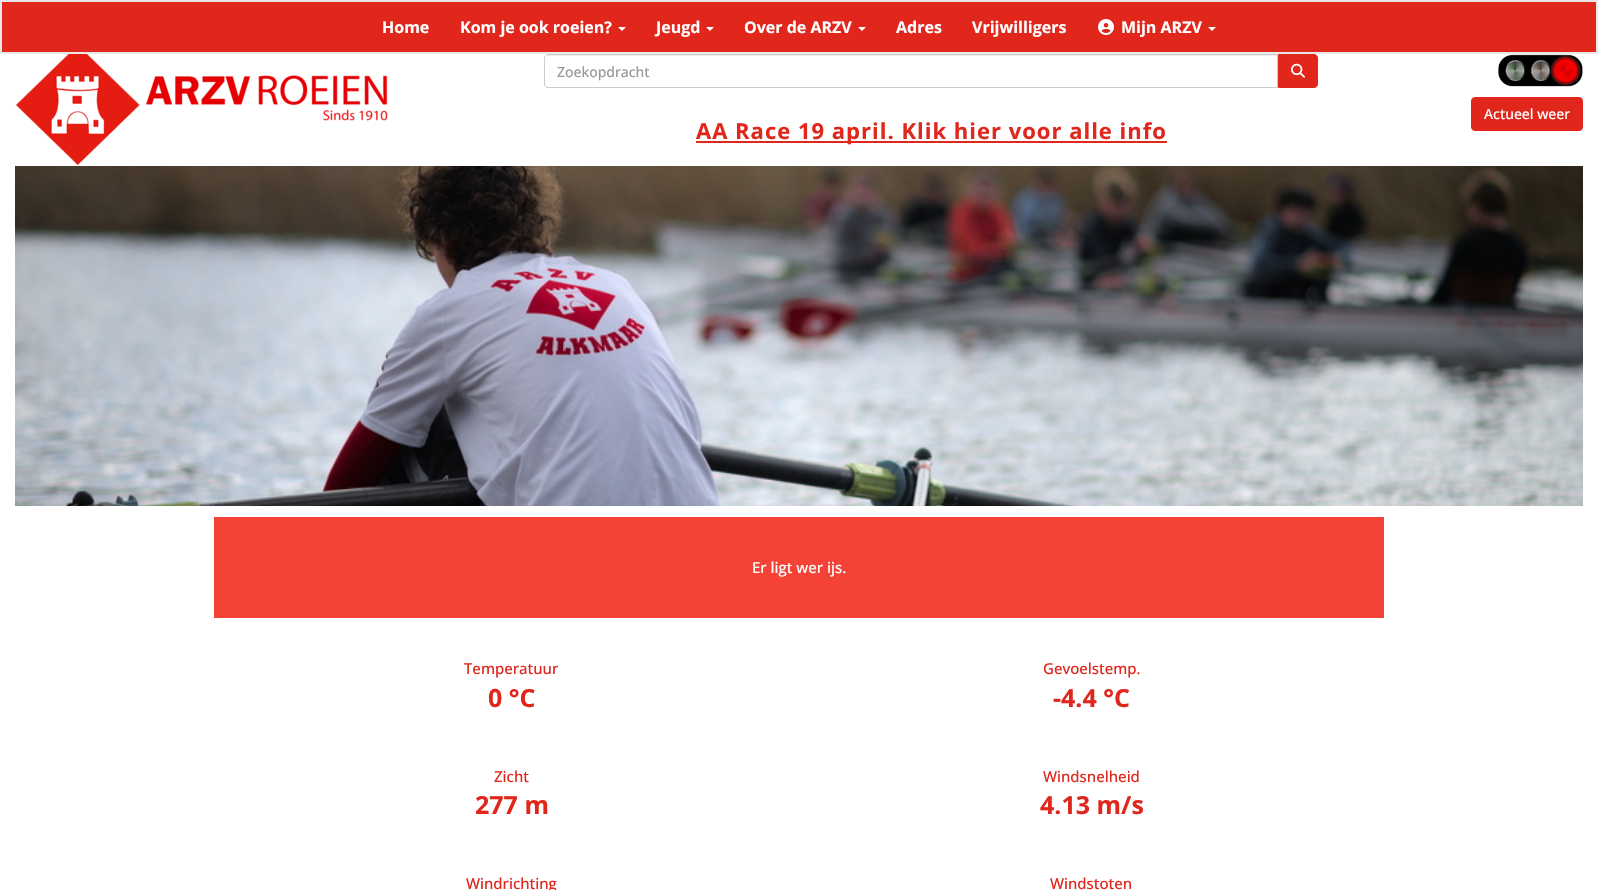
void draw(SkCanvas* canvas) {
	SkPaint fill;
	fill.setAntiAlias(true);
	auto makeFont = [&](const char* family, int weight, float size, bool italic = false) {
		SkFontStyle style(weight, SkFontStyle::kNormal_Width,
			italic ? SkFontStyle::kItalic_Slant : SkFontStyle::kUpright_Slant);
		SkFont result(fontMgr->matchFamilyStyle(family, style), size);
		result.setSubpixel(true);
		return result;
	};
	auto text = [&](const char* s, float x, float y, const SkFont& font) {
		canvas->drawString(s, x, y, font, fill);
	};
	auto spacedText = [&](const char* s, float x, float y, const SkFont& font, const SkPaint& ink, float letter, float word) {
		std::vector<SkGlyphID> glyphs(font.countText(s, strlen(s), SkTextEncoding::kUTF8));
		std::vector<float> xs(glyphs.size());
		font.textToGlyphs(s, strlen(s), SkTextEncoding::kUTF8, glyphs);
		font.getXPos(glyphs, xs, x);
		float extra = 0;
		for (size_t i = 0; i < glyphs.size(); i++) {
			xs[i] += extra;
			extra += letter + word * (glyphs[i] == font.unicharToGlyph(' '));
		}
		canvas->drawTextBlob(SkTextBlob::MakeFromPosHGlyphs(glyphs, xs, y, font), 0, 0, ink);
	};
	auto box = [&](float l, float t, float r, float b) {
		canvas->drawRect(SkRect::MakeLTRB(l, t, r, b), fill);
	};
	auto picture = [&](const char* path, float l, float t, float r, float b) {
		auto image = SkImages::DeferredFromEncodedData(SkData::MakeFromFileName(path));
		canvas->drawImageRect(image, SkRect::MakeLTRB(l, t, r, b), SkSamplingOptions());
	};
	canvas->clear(0xFFFFFFFF);
	fill.setColor(0xFFE1261C);
	canvas->drawRect(SkRect::MakeLTRB(1, 1, 1597, 53), fill);
	fill.setStyle(SkPaint::kStroke_Style);
	fill.setStrokeWidth(2);
	fill.setColor(0xFFE7E7E7);
	canvas->drawRect(SkRect::MakeLTRB(1, 1, 1597, 53), fill);
	fill.setStyle(SkPaint::kFill_Style);
	fill.setColor(0xFFFFFFFF);
	canvas->drawPath(SkPathBuilder().moveTo(618, 27).lineTo(626, 27).lineTo(622, 31).close().detach(), fill);
	canvas->drawPath(SkPathBuilder().moveTo(706, 27).lineTo(714, 27).lineTo(710, 31).close().detach(), fill);
	canvas->drawPath(SkPathBuilder().moveTo(858, 27).lineTo(866, 27).lineTo(862, 31).close().detach(), fill);
	picture("image0.png", 1098, 19, 1114, 35);
	canvas->drawPath(SkPathBuilder().moveTo(1208, 27).lineTo(1216, 27).lineTo(1212, 31).close().detach(), fill);
	picture("image1.png", 15, 54, 388, 166);
	fill.setColor(0xFFECECEC);
	canvas->drawPath(SkPathBuilder().moveTo(548, 56).lineTo(1277, 56).lineTo(1277, 55).lineTo(548, 55).cubicTo(546, 55, 545, 57, 545, 59).cubicTo(545, 57, 546, 56, 548, 56).close().detach(), fill);
	fill.setStyle(SkPaint::kStroke_Style);
	fill.setStrokeWidth(1);
	fill.setColor(0xFFCCCCCC);
	canvas->drawPath(SkPathBuilder().moveTo(548, 54.5f).lineTo(1277.5f, 54.5f).lineTo(1277.5f, 87.5f).lineTo(548, 87.5f).cubicTo(546, 87.5f, 544.5f, 86, 544.5f, 84).lineTo(544.5f, 58).cubicTo(544.5f, 56, 546, 54.5f, 548, 54.5f).close().detach(), fill);
	fill.setStyle(SkPaint::kFill_Style);
	fill.setColor(0xFFE1261C);
	canvas->drawPath(SkPathBuilder().moveTo(1278.5f, 54.5f).lineTo(1314, 54.5f).cubicTo(1316, 54.5f, 1317.5f, 56, 1317.5f, 58).lineTo(1317.5f, 84).cubicTo(1317.5f, 86, 1316, 87.5f, 1314, 87.5f).lineTo(1278.5f, 87.5f).close().detach(), fill);
	fill.setStyle(SkPaint::kStroke_Style);
	canvas->drawPath(SkPathBuilder().moveTo(1278.5f, 54.5f).lineTo(1314, 54.5f).cubicTo(1316, 54.5f, 1317.5f, 56, 1317.5f, 58).lineTo(1317.5f, 84).cubicTo(1317.5f, 86, 1316, 87.5f, 1314, 87.5f).lineTo(1278.5f, 87.5f).close().detach(), fill);
	picture("image2.png", 1291, 63, 1305, 78);
	fill.setStyle(SkPaint::kFill_Style);
	box(696, 141, 1167, 143);
	picture("image3.png", 1498, 54, 1583, 87);
	canvas->drawRoundRect(SkRect::MakeLTRB(1471.5f, 97.5f, 1582.5f, 130.5f), 3.5f, 3.5f, fill);
	fill.setStyle(SkPaint::kStroke_Style);
	canvas->drawRoundRect(SkRect::MakeLTRB(1471.5f, 97.5f, 1582.5f, 130.5f), 3.5f, 3.5f, fill);
	picture("image4.png", 15, 166, 1583, 506);
	fill.setStyle(SkPaint::kFill_Style);
	fill.setColor(0xFFF44336);
	box(214, 517, 1384, 618);
	auto font1 = makeFont("Open Sans", 700, 16);
	fill.setColor(0xFFFFFFFF);
	text("Home", 382, 33, font1);
	text("Kom je ook roeien?", 460, 33, font1);
	text("Jeugd", 656, 33, font1);
	text("Over de ARZV", 744, 33, font1);
	text("Adres", 896, 33, font1);
	text("Vrijwilligers", 972, 33, font1);
	text("Mijn ARZV", 1121, 33, font1);
	auto font2 = makeFont("Open Sans", 500, 14);
	fill.setColor(0xFF999999);
	text("Zoekopdracht", 557, 77, font2);
	auto font3 = makeFont("Open Sans", 700, 22);
	fill.setColor(0xFFE1261C);
	spacedText("AA Race 19 april. Klik hier voor alle info", 696, 139, font3, fill, 1, 0);
	fill.setColor(0xFFFFFFFF);
	text("Actueel weer", 1484, 119, font2);
	auto font4 = makeFont("Open Sans", 500, 15);
	text("Er ligt wer ijs.", 752, 573, font4);
	fill.setColor(0xFFE1261C);
	text("Temperatuur", 464, 674, font4);
	auto font5 = makeFont("Open Sans", 700, 25);
	text("0 °C", 488, 707, font5);
	text("Gevoelstemp.", 1043, 674, font4);
	text("-4.4 °C", 1053, 707, font5);
	text("Zicht", 494, 782, font4);
	text("277 m", 475, 814, font5);
	text("Windsnelheid", 1043, 782, font4);
	text("4.13 m/s", 1040, 814, font5);
	text("Windrichting", 466, 889, font4);
	text("Windstoten", 1050, 889, font4);
}
